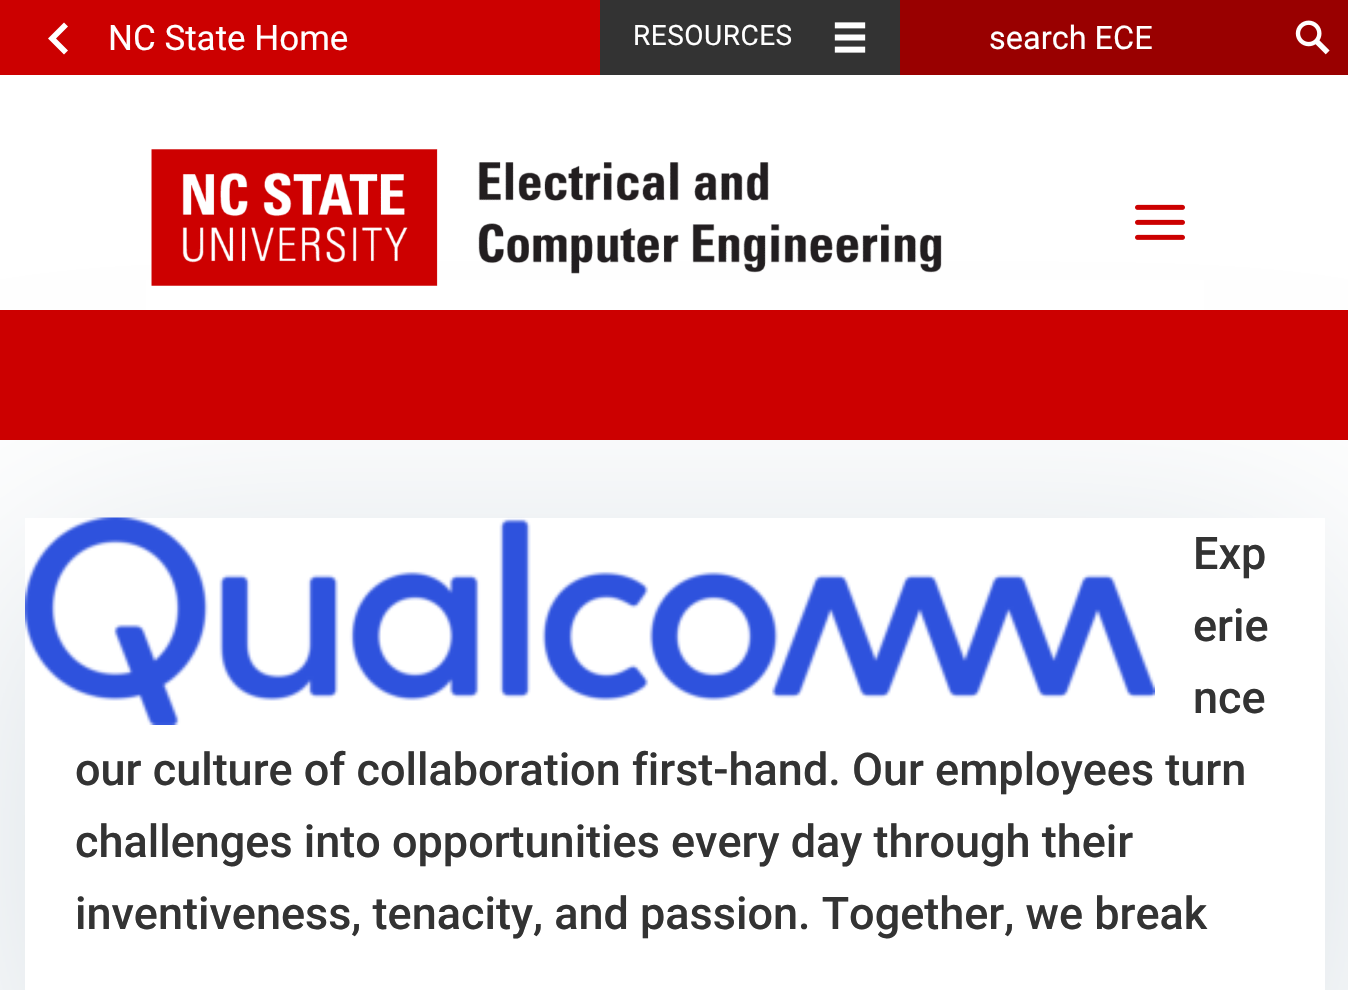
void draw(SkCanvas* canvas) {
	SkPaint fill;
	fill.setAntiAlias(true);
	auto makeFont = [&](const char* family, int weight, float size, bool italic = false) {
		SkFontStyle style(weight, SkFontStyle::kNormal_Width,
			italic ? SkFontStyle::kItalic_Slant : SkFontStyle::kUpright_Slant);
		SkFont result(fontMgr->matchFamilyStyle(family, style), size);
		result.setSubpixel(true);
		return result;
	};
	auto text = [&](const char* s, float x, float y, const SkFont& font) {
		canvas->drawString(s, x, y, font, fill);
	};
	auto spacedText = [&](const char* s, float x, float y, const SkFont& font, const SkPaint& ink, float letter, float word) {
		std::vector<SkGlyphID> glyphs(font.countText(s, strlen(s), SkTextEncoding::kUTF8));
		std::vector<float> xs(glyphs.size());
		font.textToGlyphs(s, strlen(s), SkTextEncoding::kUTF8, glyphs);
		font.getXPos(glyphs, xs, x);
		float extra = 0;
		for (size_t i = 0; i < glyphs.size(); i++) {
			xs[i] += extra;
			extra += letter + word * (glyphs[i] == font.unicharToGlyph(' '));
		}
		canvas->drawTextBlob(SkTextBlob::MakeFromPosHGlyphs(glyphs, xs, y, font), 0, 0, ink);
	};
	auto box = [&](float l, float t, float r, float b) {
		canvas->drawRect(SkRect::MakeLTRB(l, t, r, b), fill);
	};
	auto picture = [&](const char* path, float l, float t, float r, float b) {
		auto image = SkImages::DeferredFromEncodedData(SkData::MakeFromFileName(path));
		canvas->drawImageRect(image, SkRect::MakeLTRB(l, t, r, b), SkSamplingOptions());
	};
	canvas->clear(0xFFFFFFFF);
	canvas->save();
	canvas->clipPath(SkPathBuilder(SkPathFillType::kEvenOdd).moveTo(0, 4).lineTo(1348, 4).lineTo(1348, 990).lineTo(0, 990).close().moveTo(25, 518).lineTo(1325, 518).lineTo(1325, 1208).lineTo(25, 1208).close().detach(), true);
	fill.setColor(0xFFD6DEE4);
	fill.setMaskFilter(SkMaskFilter::MakeBlur(kNormal_SkBlurStyle, 187.5f));
	canvas->drawRect(SkRect::MakeLTRB(25, 568, 1325, 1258), fill);
	fill.setMaskFilter(nullptr);
	canvas->restore();
	fill.setColor(0xFFCC0000);
	box(0, 0, 600, 75);
	fill.setColor(0xFFFFFFFF);
	canvas->drawPath(SkPathBuilder().moveTo(52, 42.5f).lineTo(64, 54.5f).lineTo(68, 50.5f).lineTo(56, 38.5f).lineTo(68, 26.5f).lineTo(64, 22.5f).lineTo(48, 38.5f).close().detach(), fill);
	fill.setColor(0xFF333333);
	box(600, 0, 900, 75);
	picture("image0.png", 834, 22, 866, 53);
	fill.setColor(0xFF990000);
	box(900, 0, 1348, 75);
	picture("image1.png", 1295, 20, 1330, 55);
	fill.setColor(0xFFFFFFFF);
	box(146, 280, 1204, 310);
	picture("image2.png", 151, 149, 942, 286);
	picture("image3.png", 1135, 204, 1185, 240);
	fill.setColor(0xFFCC0000);
	box(0, 310, 1348, 440);
	picture("image4.png", 25, 517, 1155, 725);
	auto font1 = makeFont("Roboto", 400, 35);
	fill.setColor(0xFFFFFFFF);
	text("NC State Home", 108, 50, font1);
	auto font2 = makeFont("Roboto", 400, 28);
	spacedText("RESOURCES", 633, 45, font2, fill, 0.5f, 0);
	auto font3 = makeFont("Roboto", 400, 32.5f);
	text("search ECE", 989, 49, font3);
	auto font4 = makeFont("Roboto", 500, 45);
	fill.setColor(0xFF333333);
	text("Exp", 1193, 569, font4);
	text("erie", 1193, 641, font4);
	text("nce", 1193, 713, font4);
	text("our culture of collaboration first-hand. Our employees turn", 75, 785, font4);
	text("challenges into opportunities every day through their", 75, 857, font4);
	text("inventiveness, tenacity, and passion. Together, we break", 75, 929, font4);
}
